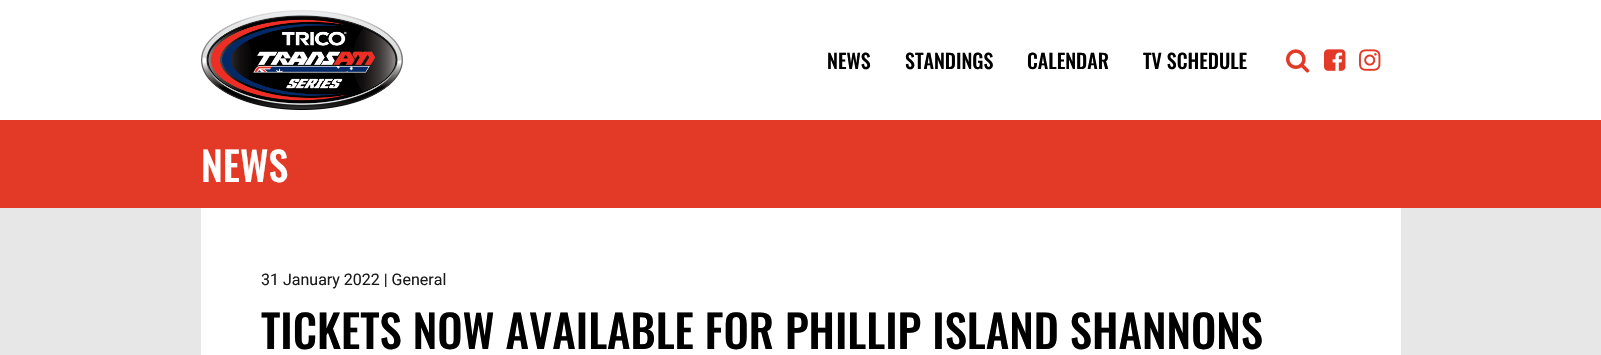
void draw(SkCanvas* canvas) {
	SkPaint fill;
	fill.setAntiAlias(true);
	auto makeFont = [&](const char* family, int weight, float size, bool italic = false) {
		SkFontStyle style(weight, SkFontStyle::kNormal_Width,
			italic ? SkFontStyle::kItalic_Slant : SkFontStyle::kUpright_Slant);
		SkFont result(fontMgr->matchFamilyStyle(family, style), size);
		result.setSubpixel(true);
		return result;
	};
	auto text = [&](const char* s, float x, float y, const SkFont& font) {
		canvas->drawString(s, x, y, font, fill);
	};
	auto box = [&](float l, float t, float r, float b) {
		canvas->drawRect(SkRect::MakeLTRB(l, t, r, b), fill);
	};
	auto picture = [&](const char* path, float l, float t, float r, float b) {
		auto image = SkImages::DeferredFromEncodedData(SkData::MakeFromFileName(path));
		canvas->drawImageRect(image, SkRect::MakeLTRB(l, t, r, b), SkSamplingOptions());
	};
	canvas->clear(0xFFE7E7E7);
	fill.setColor(0xFFFFFFFF);
	box(0, 0, 1601, 120);
	picture("image0.png", 201, 10, 403, 110);
	picture("image1.png", 1286, 49, 1310, 73);
	picture("image2.png", 1324, 49, 1346, 71);
	picture("image3.png", 1359, 49, 1381, 71);
	fill.setColor(0xFFE33A27);
	box(0, 120, 1601, 208);
	fill.setColor(0xFFFFFFFF);
	box(201, 208, 1401, 355);
	auto font1 = makeFont("Oswald", 500, 20);
	fill.setColor(0xFF000000);
	text("NEWS", 827, 69, font1);
	text("STANDINGS", 905, 69, font1);
	text("CALENDAR", 1027, 69, font1);
	text("TV SCHEDULE", 1143, 69, font1);
	auto font2 = makeFont("Oswald", 500, 40);
	fill.setColor(0xFFFFFFFF);
	text("NEWS", 201, 182, font2);
	auto font3 = makeFont("Roboto", 400, 16);
	fill.setColor(0xFF1A1A1A);
	text("31 January 2022 | General", 261, 285, font3);
	auto font4 = makeFont("Oswald", 500, 45);
	fill.setColor(0xFF000000);
	text("TICKETS NOW AVAILABLE FOR PHILLIP ISLAND SHANNONS", 261, 349, font4);
}
